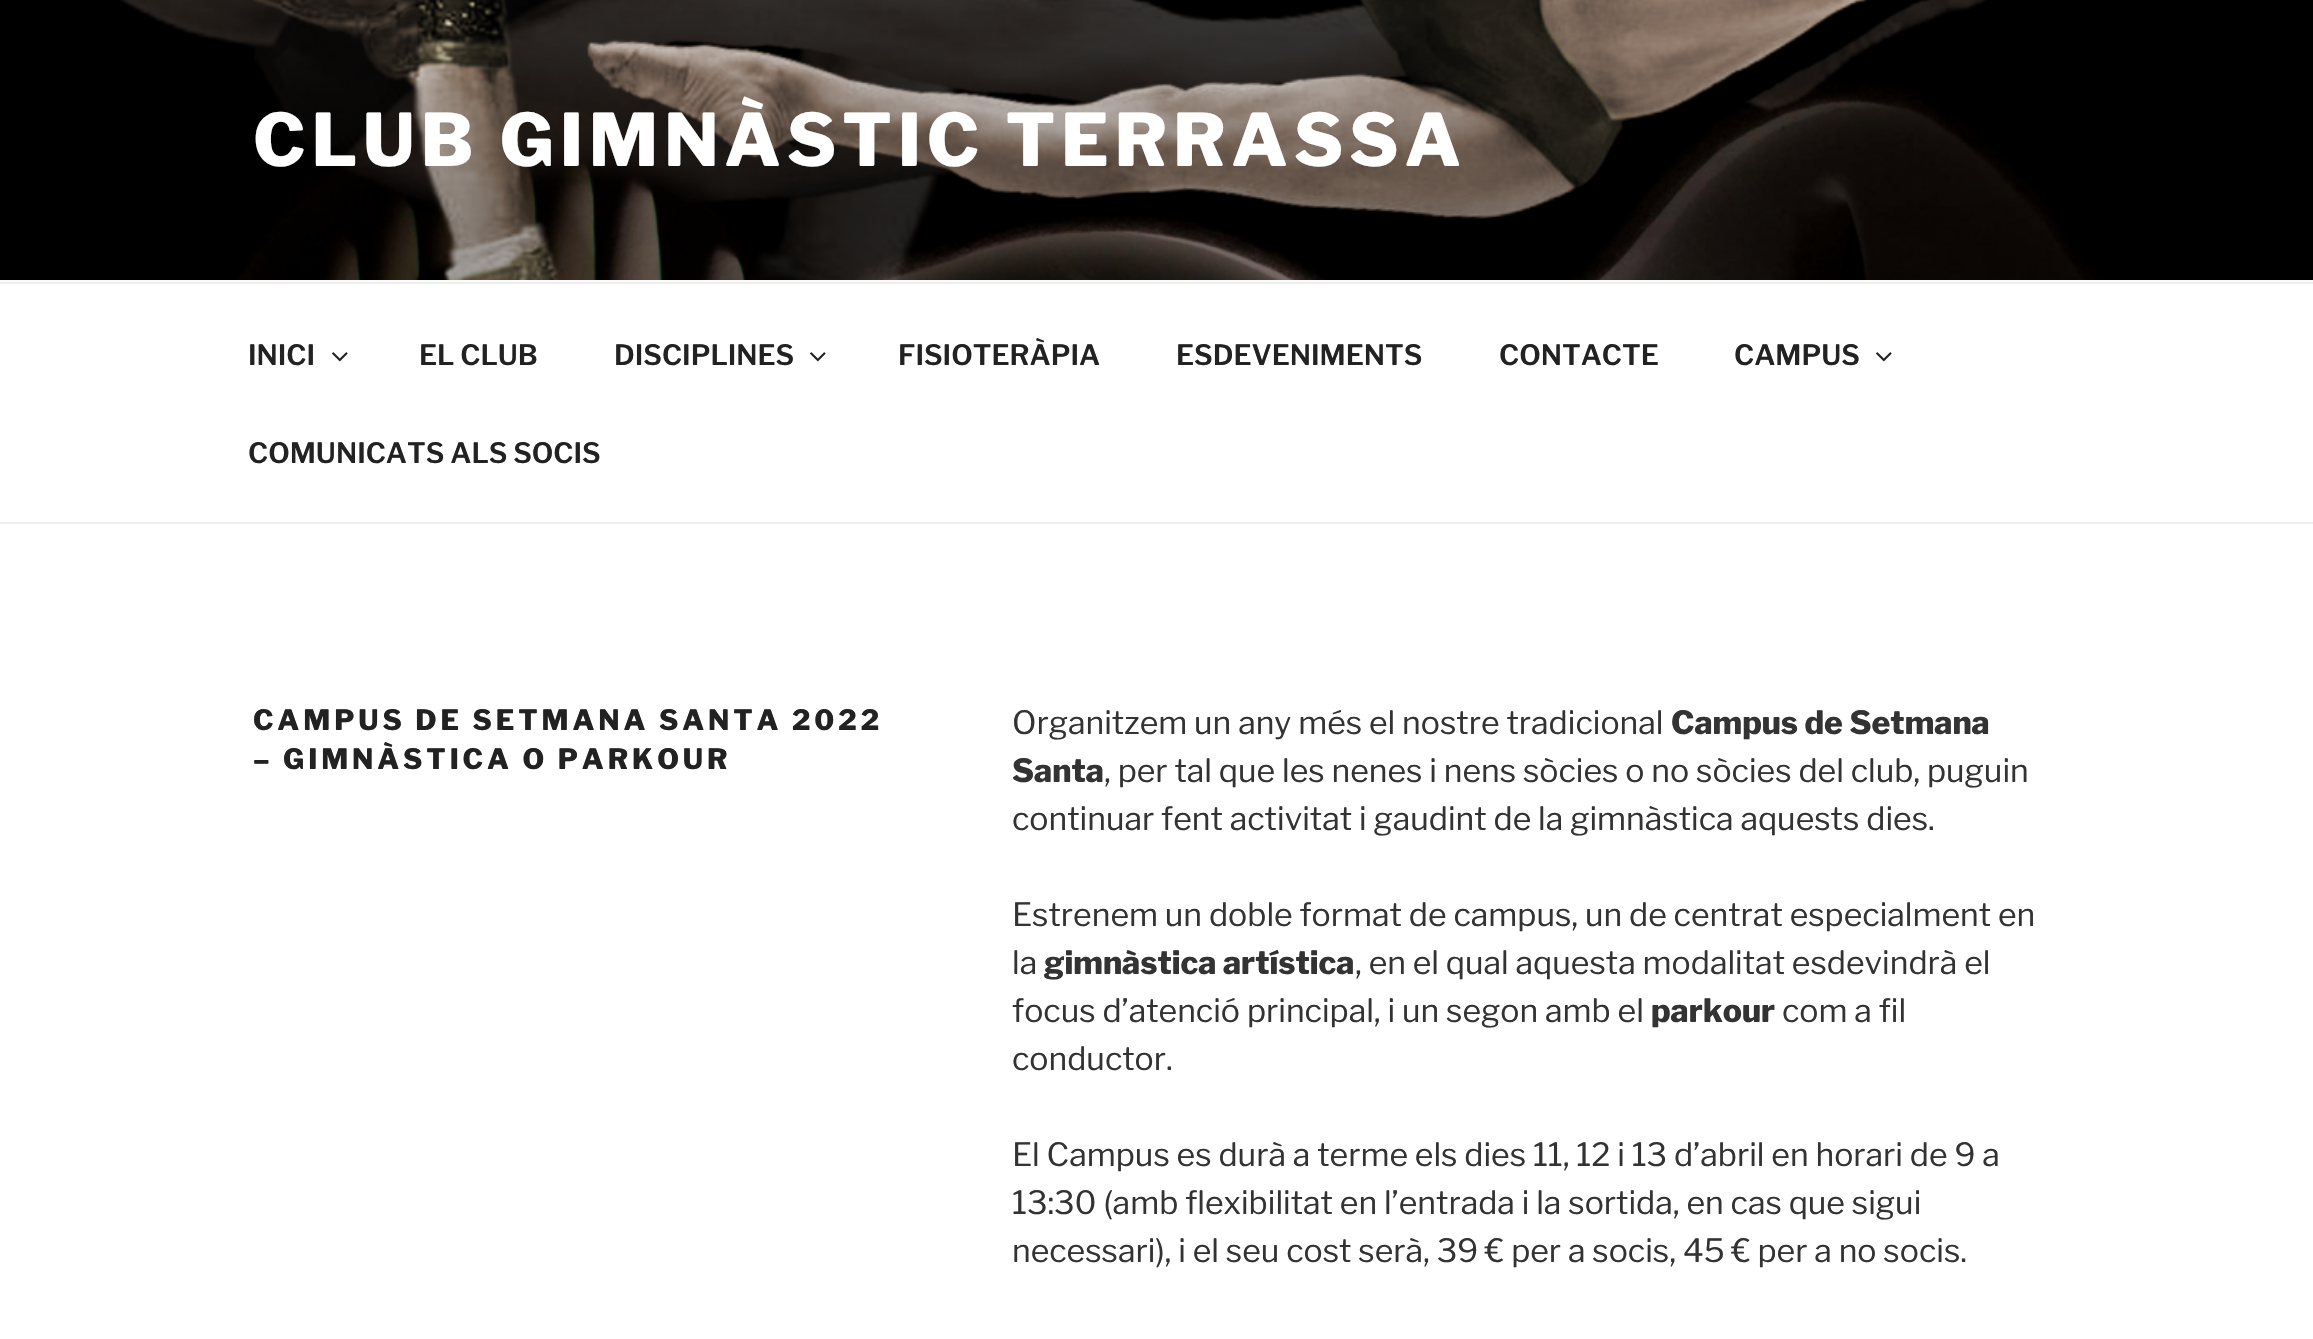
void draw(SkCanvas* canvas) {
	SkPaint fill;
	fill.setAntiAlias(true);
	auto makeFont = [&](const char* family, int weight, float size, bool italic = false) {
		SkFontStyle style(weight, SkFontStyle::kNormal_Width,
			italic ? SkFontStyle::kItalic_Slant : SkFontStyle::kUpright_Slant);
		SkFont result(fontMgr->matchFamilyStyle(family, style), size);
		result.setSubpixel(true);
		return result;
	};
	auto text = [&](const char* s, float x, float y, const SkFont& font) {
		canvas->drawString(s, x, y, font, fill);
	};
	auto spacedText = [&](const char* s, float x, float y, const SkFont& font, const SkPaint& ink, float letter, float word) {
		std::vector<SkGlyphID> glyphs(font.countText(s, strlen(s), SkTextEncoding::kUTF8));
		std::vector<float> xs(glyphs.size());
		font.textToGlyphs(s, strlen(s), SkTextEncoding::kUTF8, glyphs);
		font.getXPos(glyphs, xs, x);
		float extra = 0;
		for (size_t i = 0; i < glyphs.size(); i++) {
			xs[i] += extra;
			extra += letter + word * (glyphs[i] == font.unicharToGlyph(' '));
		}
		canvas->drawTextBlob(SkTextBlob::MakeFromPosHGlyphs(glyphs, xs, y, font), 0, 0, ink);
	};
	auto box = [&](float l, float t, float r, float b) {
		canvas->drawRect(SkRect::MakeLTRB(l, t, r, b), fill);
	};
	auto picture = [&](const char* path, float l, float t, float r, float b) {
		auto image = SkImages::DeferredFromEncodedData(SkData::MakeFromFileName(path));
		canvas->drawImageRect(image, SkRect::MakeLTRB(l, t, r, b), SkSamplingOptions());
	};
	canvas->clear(0xFFFFFFFF);
	fill.setColor(0xFFFAFAFA);
	box(0, 280, 2313, 282);
	picture("image0.png", 0, 0, 2313, 280);
	fill.setColor(0xFFEEEEEE);
	box(0, 282, 2313, 284);
	box(0, 522, 2313, 524);
	picture("image1.png", 332, 352, 348, 362);
	picture("image1.png", 810, 352, 826, 362);
	picture("image1.png", 1876, 352, 1892, 362);
	auto font1 = makeFont("Libre Franklin", 800, 72);
	fill.setColor(0xFFFFFFFF);
	spacedText("CLUB GIMNÀSTIC TERRASSA", 253, 166, font1, fill, 5.75f, 0);
	auto font2 = makeFont("Libre Franklin", 600, 28);
	fill.setColor(0xFF222222);
	text("INICI", 248, 365, font2);
	text("EL CLUB", 419, 365, font2);
	text("DISCIPLINES", 614, 365, font2);
	text("FISIOTERÀPIA", 898, 365, font2);
	text("ESDEVENIMENTS", 1176, 365, font2);
	text("CONTACTE", 1499, 365, font2);
	text("CAMPUS", 1734, 365, font2);
	text("COMUNICATS ALS SOCIS", 248, 463, font2);
	auto font3 = makeFont("Libre Franklin", 800, 28);
	spacedText("CAMPUS DE SETMANA SANTA 2022", 253, 730, font3, fill, 3.9f, 0);
	spacedText("– GIMNÀSTICA O PARKOUR", 253, 769, font3, fill, 3.9f, 0);
	auto font4 = makeFont("Libre Franklin", 400, 32);
	fill.setColor(0xFF333333);
	text("Organitzem un any més el nostre tradicional", 1012, 734, font4);
	auto font5 = makeFont("Libre Franklin", 800, 32);
	text("Campus de Setmana", 1671, 734, font5);
	text("Santa", 1012, 782, font5);
	text(", per tal que les nenes i nens sòcies o no sòcies del club, puguin", 1104, 782, font4);
	text("continuar fent activitat i gaudint de la gimnàstica aquests dies.", 1012, 830, font4);
	text("Estrenem un doble format de campus, un de centrat especialment en", 1012, 926, font4);
	text("la", 1012, 974, font4);
	text("gimnàstica artística", 1044, 974, font5);
	text(", en el qual aquesta modalitat esdevindrà el", 1355, 974, font4);
	text("focus d’atenció principal, i un segon amb el", 1012, 1022, font4);
	text("parkour", 1651, 1022, font5);
	text("com a fil", 1782, 1022, font4);
	text("conductor.", 1012, 1070, font4);
	text("El Campus es durà a terme els dies 11, 12 i 13 d’abril en horari de 9 a", 1012, 1166, font4);
	text("13:30 (amb flexibilitat en l’entrada i la sortida, en cas que sigui", 1012, 1214, font4);
	text("necessari), i el seu cost serà, 39 € per a socis, 45 € per a no socis.", 1012, 1262, font4);
}
